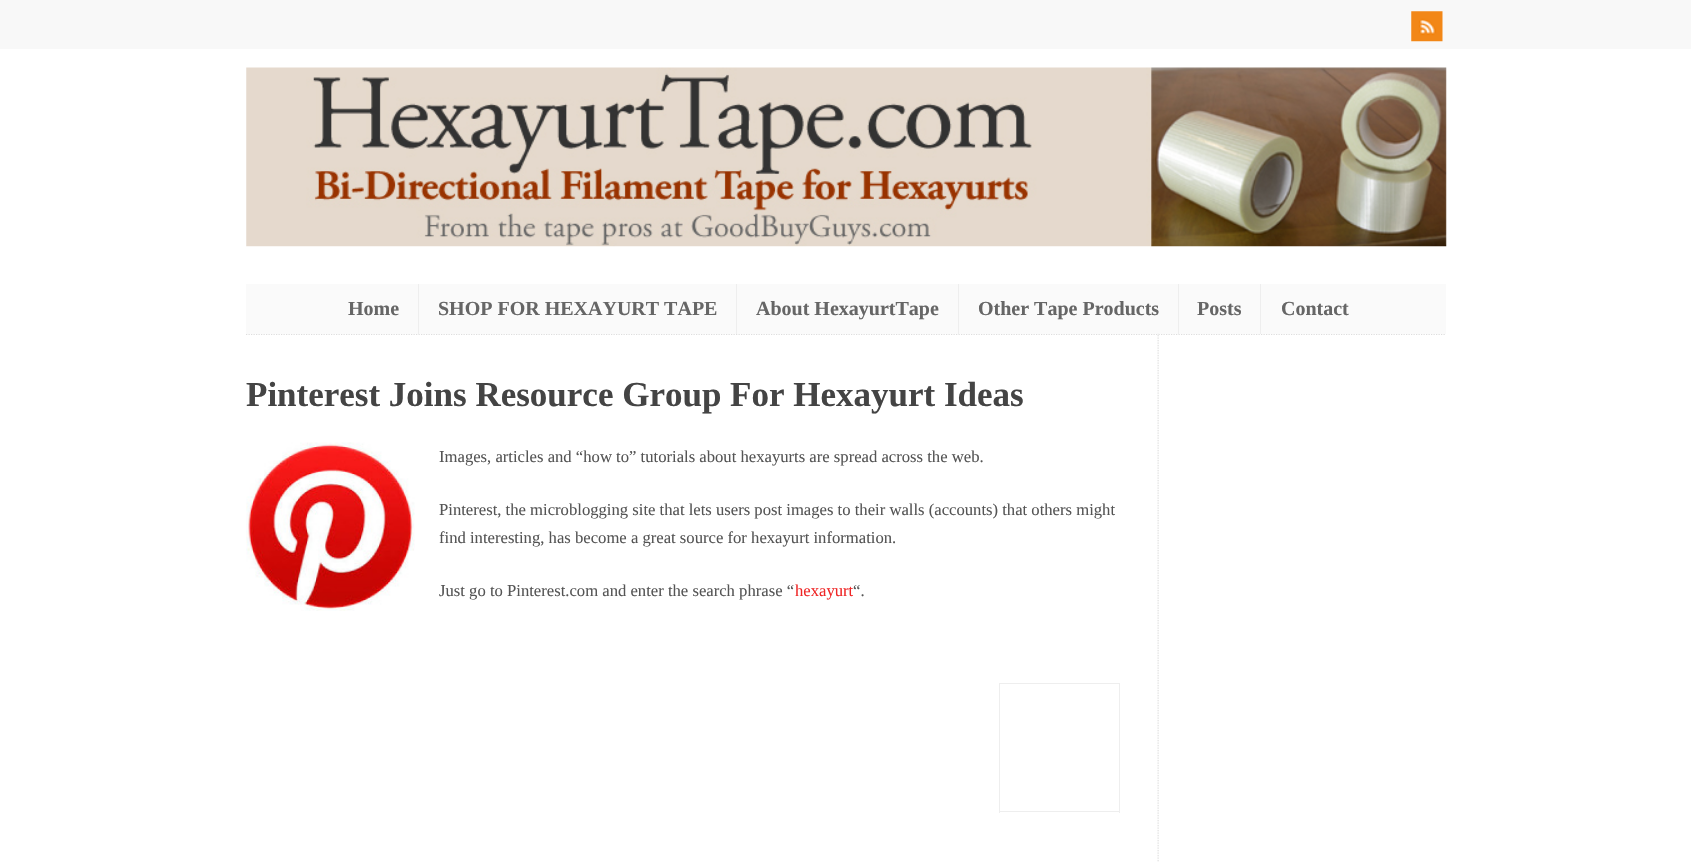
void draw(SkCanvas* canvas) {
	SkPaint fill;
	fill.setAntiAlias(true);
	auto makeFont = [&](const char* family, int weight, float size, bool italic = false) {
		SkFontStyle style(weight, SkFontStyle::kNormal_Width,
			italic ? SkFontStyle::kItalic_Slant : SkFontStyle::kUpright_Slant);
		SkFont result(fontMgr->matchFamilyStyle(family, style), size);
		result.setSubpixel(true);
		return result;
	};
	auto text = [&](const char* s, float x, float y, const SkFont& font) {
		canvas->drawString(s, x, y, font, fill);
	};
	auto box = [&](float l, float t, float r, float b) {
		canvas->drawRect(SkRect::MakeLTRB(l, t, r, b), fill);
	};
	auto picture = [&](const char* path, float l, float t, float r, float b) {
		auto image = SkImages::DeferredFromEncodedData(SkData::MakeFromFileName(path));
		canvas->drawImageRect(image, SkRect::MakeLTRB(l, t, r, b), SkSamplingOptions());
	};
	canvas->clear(0xFFFFFFFF);
	fill.setColor(0xFFF8F8F8);
	box(0, 0, 1691, 49);
	picture("image0.png", 1411, 11, 1443, 42);
	picture("image1.png", 246, 67, 1447, 247);
	fill.setColor(0xFFFAFAFA);
	box(246, 284, 1446, 334);
	picture("image2.png", 1157, 333, 1159, 862);
	fill.setStyle(SkPaint::kStroke_Style);
	fill.setStrokeWidth(1.2f);
	fill.setColor(0xFFDDDDDD);
	fill.setPathEffect(SkDashPathEffect::Make({{1.25f, 1.25f}}, 0));
	canvas->drawPath(SkPathBuilder().moveTo(246, 334.5f).lineTo(1446, 334.5f).detach(), fill);
	fill.setPathEffect(nullptr);
	fill.setStyle(SkPaint::kFill_Style);
	fill.setColor(0xFFEEEEEE);
	box(418, 284, 419, 334);
	box(736, 284, 737, 334);
	box(958, 284, 959, 334);
	box(1178, 284, 1179, 334);
	box(1260, 284, 1261, 334);
	picture("image3.png", 246, 442, 415, 611);
	box(999, 683, 1120, 684);
	box(1119, 683, 1120, 813);
	box(999, 811, 1120, 812);
	box(999, 683, 1000, 813);
	auto font1 = makeFont("Liberation Serif", 700, 20);
	fill.setColor(0xFF666666);
	text("Home", 348, 315, font1);
	text("SHOP FOR HEXAYURT TAPE", 438, 315, font1);
	text("About HexayurtTape", 756, 315, font1);
	text("Other Tape Products", 978, 315, font1);
	text("Posts", 1197, 315, font1);
	text("Contact", 1281, 315, font1);
	auto font2 = makeFont("Liberation Serif", 700, 35);
	fill.setColor(0xFF444444);
	text("Pinterest Joins Resource Group For Hexayurt Ideas", 246, 406, font2);
	auto font3 = makeFont("Liberation Serif", 400, 16.65f);
	fill.setColor(0xFF555555);
	text("Images, articles and “how to” tutorials about hexayurts are spread across the web.", 439, 462, font3);
	text("Pinterest, the microblogging site that lets users post images to their walls (accounts) that others might", 439, 515, font3);
	text("find interesting, has become a great source for hexayurt information.", 439, 543, font3);
	text("Just go to Pinterest.com and enter the search phrase “", 439, 596, font3);
	fill.setColor(0xFFEF2626);
	text("hexayurt", 795, 596, font3);
	fill.setColor(0xFF555555);
	text("“.", 853, 596, font3);
}
